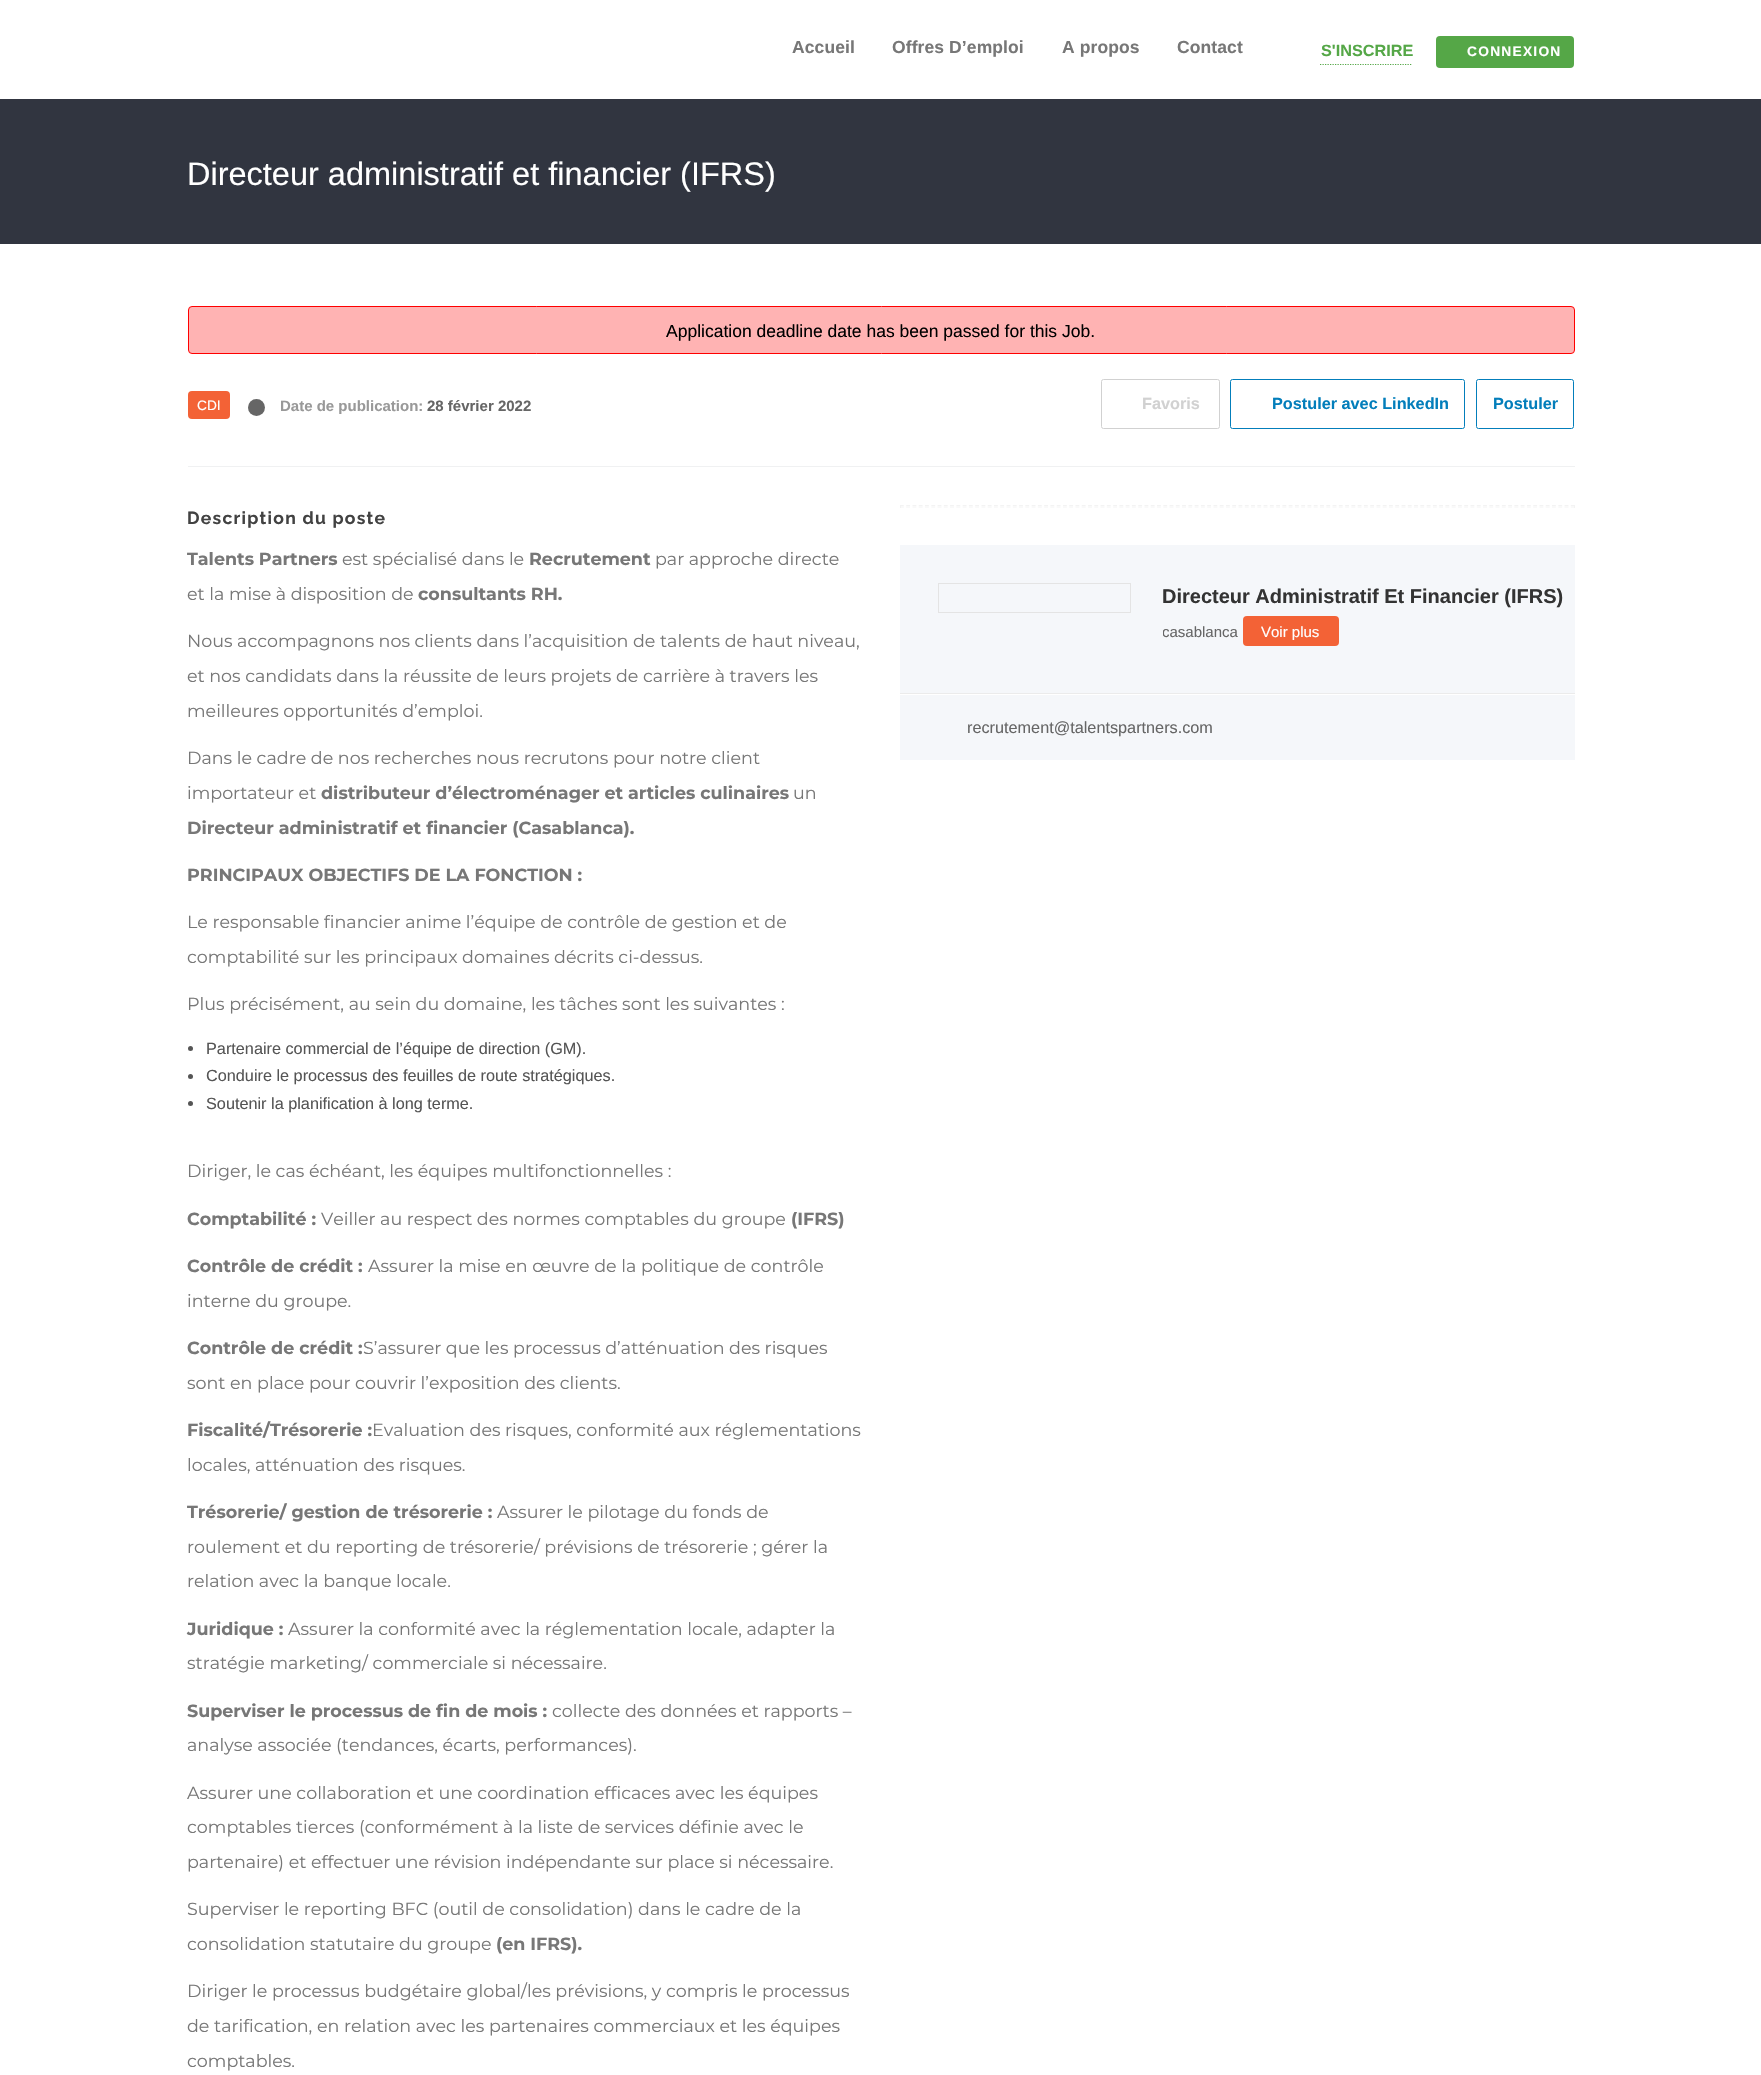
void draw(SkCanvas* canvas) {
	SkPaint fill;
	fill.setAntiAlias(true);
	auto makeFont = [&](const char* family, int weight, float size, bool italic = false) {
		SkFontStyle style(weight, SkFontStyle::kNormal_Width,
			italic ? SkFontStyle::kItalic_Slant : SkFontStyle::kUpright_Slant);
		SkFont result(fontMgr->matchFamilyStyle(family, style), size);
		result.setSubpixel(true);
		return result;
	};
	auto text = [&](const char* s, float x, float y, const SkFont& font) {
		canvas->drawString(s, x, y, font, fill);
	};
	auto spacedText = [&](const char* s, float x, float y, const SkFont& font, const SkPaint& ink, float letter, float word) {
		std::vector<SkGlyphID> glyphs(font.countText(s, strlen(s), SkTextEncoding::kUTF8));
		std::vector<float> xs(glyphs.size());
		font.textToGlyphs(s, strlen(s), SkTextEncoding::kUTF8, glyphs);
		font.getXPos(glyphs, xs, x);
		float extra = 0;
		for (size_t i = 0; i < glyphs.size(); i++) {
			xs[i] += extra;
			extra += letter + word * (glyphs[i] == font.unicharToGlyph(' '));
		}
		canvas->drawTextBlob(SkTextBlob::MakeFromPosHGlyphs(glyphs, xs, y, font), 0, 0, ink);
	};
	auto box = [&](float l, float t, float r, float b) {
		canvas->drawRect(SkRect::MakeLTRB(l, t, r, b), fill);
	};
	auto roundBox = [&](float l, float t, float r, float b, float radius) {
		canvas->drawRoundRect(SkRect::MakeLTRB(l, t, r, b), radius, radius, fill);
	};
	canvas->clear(0xFFFFFFFF);
	fill.setStyle(SkPaint::kStroke_Style);
	fill.setStrokeWidth(1.2f);
	fill.setColor(0xFF55A747);
	fill.setPathEffect(SkDashPathEffect::Make({{1.25f, 1.25f}}, 0));
	canvas->drawPath(SkPathBuilder().moveTo(1320, 64.5f).lineTo(1412.5f, 64.5f).detach(), fill);
	fill.setPathEffect(nullptr);
	fill.setStyle(SkPaint::kFill_Style);
	roundBox(1436, 36, 1574, 68, 4);
	box(1572, 66, 1573, 67);
	fill.setColor(0xFF313540);
	box(0, 99, 1761, 244);
	fill.setColor(0xFFF0F1F2);
	box(188, 466, 1575, 467);
	fill.setColor(0xFFFFB3B3);
	canvas->drawRoundRect(SkRect::MakeLTRB(188.5f, 306.5f, 1574.5f, 353.5f), 3.5f, 3.5f, fill);
	fill.setStyle(SkPaint::kStroke_Style);
	fill.setStrokeWidth(1);
	fill.setColor(0xFFFF0000);
	canvas->drawRoundRect(SkRect::MakeLTRB(188.5f, 306.5f, 1574.5f, 353.5f), 3.5f, 3.5f, fill);
	fill.setStyle(SkPaint::kFill_Style);
	fill.setColor(0xFFF36236);
	roundBox(188, 391, 230, 419, 4);
	fill.setColor(0xFF666666);
	canvas->drawCircle(256.5f, 407.5f, 8.5f, fill);
	fill.setStyle(SkPaint::kStroke_Style);
	fill.setColor(0xFFD1D1D1);
	canvas->drawRoundRect(SkRect::MakeLTRB(1101.5f, 379.5f, 1219.5f, 428.5f), 2, 2, fill);
	fill.setColor(0xFF037EBB);
	canvas->drawRoundRect(SkRect::MakeLTRB(1230.5f, 379.5f, 1464.5f, 428.5f), 2, 2, fill);
	canvas->drawRoundRect(SkRect::MakeLTRB(1476.5f, 379.5f, 1573.5f, 428.5f), 2, 2, fill);
	fill.setStyle(SkPaint::kFill_Style);
	fill.setColor(0xFF555555);
	canvas->drawCircle(190.5f, 1048.5f, 2.5f, fill);
	canvas->drawCircle(190.5f, 1076.5f, 2.5f, fill);
	canvas->drawCircle(190.5f, 1103.5f, 2.5f, fill);
	fill.setStyle(SkPaint::kStroke_Style);
	fill.setStrokeWidth(1.2f);
	fill.setColor(0xFFF3F3F3);
	fill.setPathEffect(SkDashPathEffect::Make({{3.75f, 2.52f}}, 0));
	canvas->drawPath(SkPathBuilder().moveTo(900, 505.5f).lineTo(1575, 505.5f).detach(), fill);
	fill.setPathEffect(nullptr);
	fill.setStyle(SkPaint::kFill_Style);
	box(1574, 505, 1575, 508);
	fill.setStyle(SkPaint::kStroke_Style);
	fill.setPathEffect(SkDashPathEffect::Make({{3.75f, 2.52f}}, 0));
	canvas->drawPath(SkPathBuilder().moveTo(900, 507).lineTo(1575, 507).detach(), fill);
	fill.setPathEffect(nullptr);
	fill.setStyle(SkPaint::kFill_Style);
	box(900, 505, 901, 508);
	fill.setColor(0xFFF5F7FA);
	box(900, 545, 1575, 760);
	fill.setStyle(SkPaint::kStroke_Style);
	fill.setStrokeWidth(1);
	fill.setColor(0xFFE4E4E4);
	canvas->drawRect(SkRect::MakeLTRB(938.5f, 583.5f, 1130.5f, 612.5f), fill);
	fill.setStyle(SkPaint::kFill_Style);
	fill.setColor(0xFFF36236);
	roundBox(1243, 616, 1339, 646, 4);
	fill.setColor(0xFFEBEBEB);
	box(900, 693, 1575, 694);
	fill.setColor(0xFFFFFFFF);
	box(900, 694, 1575, 695);
	auto font1 = makeFont("Liberation Sans", 700, 17.5f);
	fill.setColor(0xFF777777);
	spacedText("Accueil", 792, 53, font1, fill, 0.1f, 0);
	spacedText("Offres D’emploi", 892, 53, font1, fill, 0.1f, 0);
	spacedText("A propos", 1062, 53, font1, fill, 0.1f, 0);
	spacedText("Contact", 1177, 53, font1, fill, 0.1f, 0);
	auto font2 = makeFont("Liberation Sans", 700, 16.25f);
	fill.setColor(0xFF55A747);
	text("S'INSCRIRE", 1321, 56, font2);
	auto font3 = makeFont("Liberation Sans", 700, 13.75f);
	fill.setColor(0xFFFFFFFF);
	spacedText("CONNEXION", 1467, 56, font3, fill, 1.25f, 0);
	auto font4 = makeFont("Liberation Sans", 400, 32.5f);
	text("Directeur administratif et financier (IFRS)", 187, 185, font4);
	auto font5 = makeFont("Liberation Sans", 400, 17.5f);
	fill.setColor(0xFF000000);
	text("Application deadline date has been passed for this Job.", 666, 337, font5);
	auto font6 = makeFont("Liberation Sans", 400, 13.75f);
	fill.setColor(0xFFFFFFFF);
	text("CDI", 197, 410, font6);
	auto font7 = makeFont("Liberation Sans", 700, 15);
	fill.setColor(0xFF999999);
	text("Date de publication:", 280, 411, font7);
	fill.setColor(0xFF666666);
	text("28 février 2022", 427, 411, font7);
	fill.setColor(0xFFD1D1D1);
	text("Favoris", 1142, 409, font2);
	fill.setColor(0xFF037EBB);
	text("Postuler avec LinkedIn", 1272, 409, font2);
	text("Postuler", 1493, 409, font2);
	auto font8 = makeFont("Raleway", 700, 17.5f);
	fill.setColor(0xFF424242);
	spacedText("Description du poste", 187, 524, font8, fill, 1.25f, 0);
	auto font9 = makeFont("Montserrat", 700, 17.5f);
	fill.setColor(0xFF777777);
	text("Talents Partners", 187, 565, font9);
	auto font10 = makeFont("Montserrat", 400, 17.5f);
	text("est spécialisé dans le", 342, 565, font10);
	text("Recrutement", 529, 565, font9);
	text("par approche directe", 655, 565, font10);
	text("et la mise à disposition de", 187, 600, font10);
	text("consultants RH.", 418, 600, font9);
	text("Nous accompagnons nos clients dans l’acquisition de talents de haut niveau,", 187, 647, font10);
	text("et nos candidats dans la réussite de leurs projets de carrière à travers les", 187, 682, font10);
	text("meilleures opportunités d’emploi.", 187, 717, font10);
	text("Dans le cadre de nos recherches nous recrutons pour notre client", 187, 764, font10);
	text("importateur et", 187, 799, font10);
	text("distributeur d’électroménager et articles culinaires", 321, 799, font9);
	text("un", 793, 799, font10);
	text("Directeur administratif et financier (Casablanca).", 187, 834, font9);
	text("PRINCIPAUX OBJECTIFS DE LA FONCTION :", 187, 881, font9);
	text("Le responsable financier anime l’équipe de contrôle de gestion et de", 187, 928, font10);
	text("comptabilité sur les principaux domaines décrits ci-dessus.", 187, 963, font10);
	text("Plus précisément, au sein du domaine, les tâches sont les suivantes :", 187, 1010, font10);
	auto font11 = makeFont("Liberation Sans", 400, 16.25f);
	fill.setColor(0xFF555555);
	text("Partenaire commercial de l’équipe de direction (GM).", 206, 1054, font11);
	text("Conduire le processus des feuilles de route stratégiques.", 206, 1081, font11);
	text("Soutenir la planification à long terme.", 206, 1109, font11);
	fill.setColor(0xFF777777);
	text("Diriger, le cas échéant, les équipes multifonctionnelles :", 187, 1177, font10);
	text("Comptabilité :", 187, 1225, font9);
	text("Veiller au respect des normes comptables du groupe", 321, 1225, font10);
	text("(IFRS)", 791, 1225, font9);
	text("Contrôle de crédit :", 187, 1272, font9);
	text("Assurer la mise en œuvre de la politique de contrôle", 368, 1272, font10);
	text("interne du groupe.", 187, 1307, font10);
	text("Contrôle de crédit :", 187, 1354, font9);
	text("S’assurer que les processus d’atténuation des risques", 363, 1354, font10);
	text("sont en place pour couvrir l’exposition des clients.", 187, 1389, font10);
	text("Fiscalité/Trésorerie :", 187, 1436, font9);
	text("Evaluation des risques, conformité aux réglementations", 372, 1436, font10);
	text("locales, atténuation des risques.", 187, 1471, font10);
	text("Trésorerie/ gestion de trésorerie :", 187, 1518, font9);
	text("Assurer le pilotage du fonds de", 497, 1518, font10);
	text("roulement et du reporting de trésorerie/ prévisions de trésorerie ; gérer la", 187, 1553, font10);
	text("relation avec la banque locale.", 187, 1587, font10);
	text("Juridique :", 187, 1635, font9);
	text("Assurer la conformité avec la réglementation locale, adapter la", 288, 1635, font10);
	text("stratégie marketing/ commerciale si nécessaire.", 187, 1669, font10);
	text("Superviser le processus de fin de mois :", 187, 1717, font9);
	text("collecte des données et rapports –", 552, 1717, font10);
	text("analyse associée (tendances, écarts, performances).", 187, 1751, font10);
	text("Assurer une collaboration et une coordination efficaces avec les équipes", 187, 1799, font10);
	text("comptables tierces (conformément à la liste de services définie avec le", 187, 1833, font10);
	text("partenaire) et effectuer une révision indépendante sur place si nécessaire.", 187, 1868, font10);
	text("Superviser le reporting BFC (outil de consolidation) dans le cadre de la", 187, 1915, font10);
	text("consolidation statutaire du groupe", 187, 1950, font10);
	text("(en IFRS).", 496, 1950, font9);
	text("Diriger le processus budgétaire global/les prévisions, y compris le processus", 187, 1997, font10);
	text("de tarification, en relation avec les partenaires commerciaux et les équipes", 187, 2032, font10);
	text("comptables.", 187, 2067, font10);
	auto font12 = makeFont("Liberation Sans", 700, 20);
	fill.setColor(0xFF333333);
	text("Directeur Administratif Et Financier (IFRS)", 1162, 603, font12);
	canvas->save();
	canvas->clipRect(SkRect::MakeLTRB(1163, 583, 1575, 655));
	auto font13 = makeFont("Liberation Sans", 400, 15);
	fill.setColor(0xFF666666);
	text("casablanca", 1162, 637, font13);
	canvas->restore();
	fill.setColor(0xFFFFFFFF);
	text("Voir plus", 1261, 637, font13);
	fill.setColor(0xFF666666);
	text("recrutement@talentspartners.com", 967, 733, font11);
}
